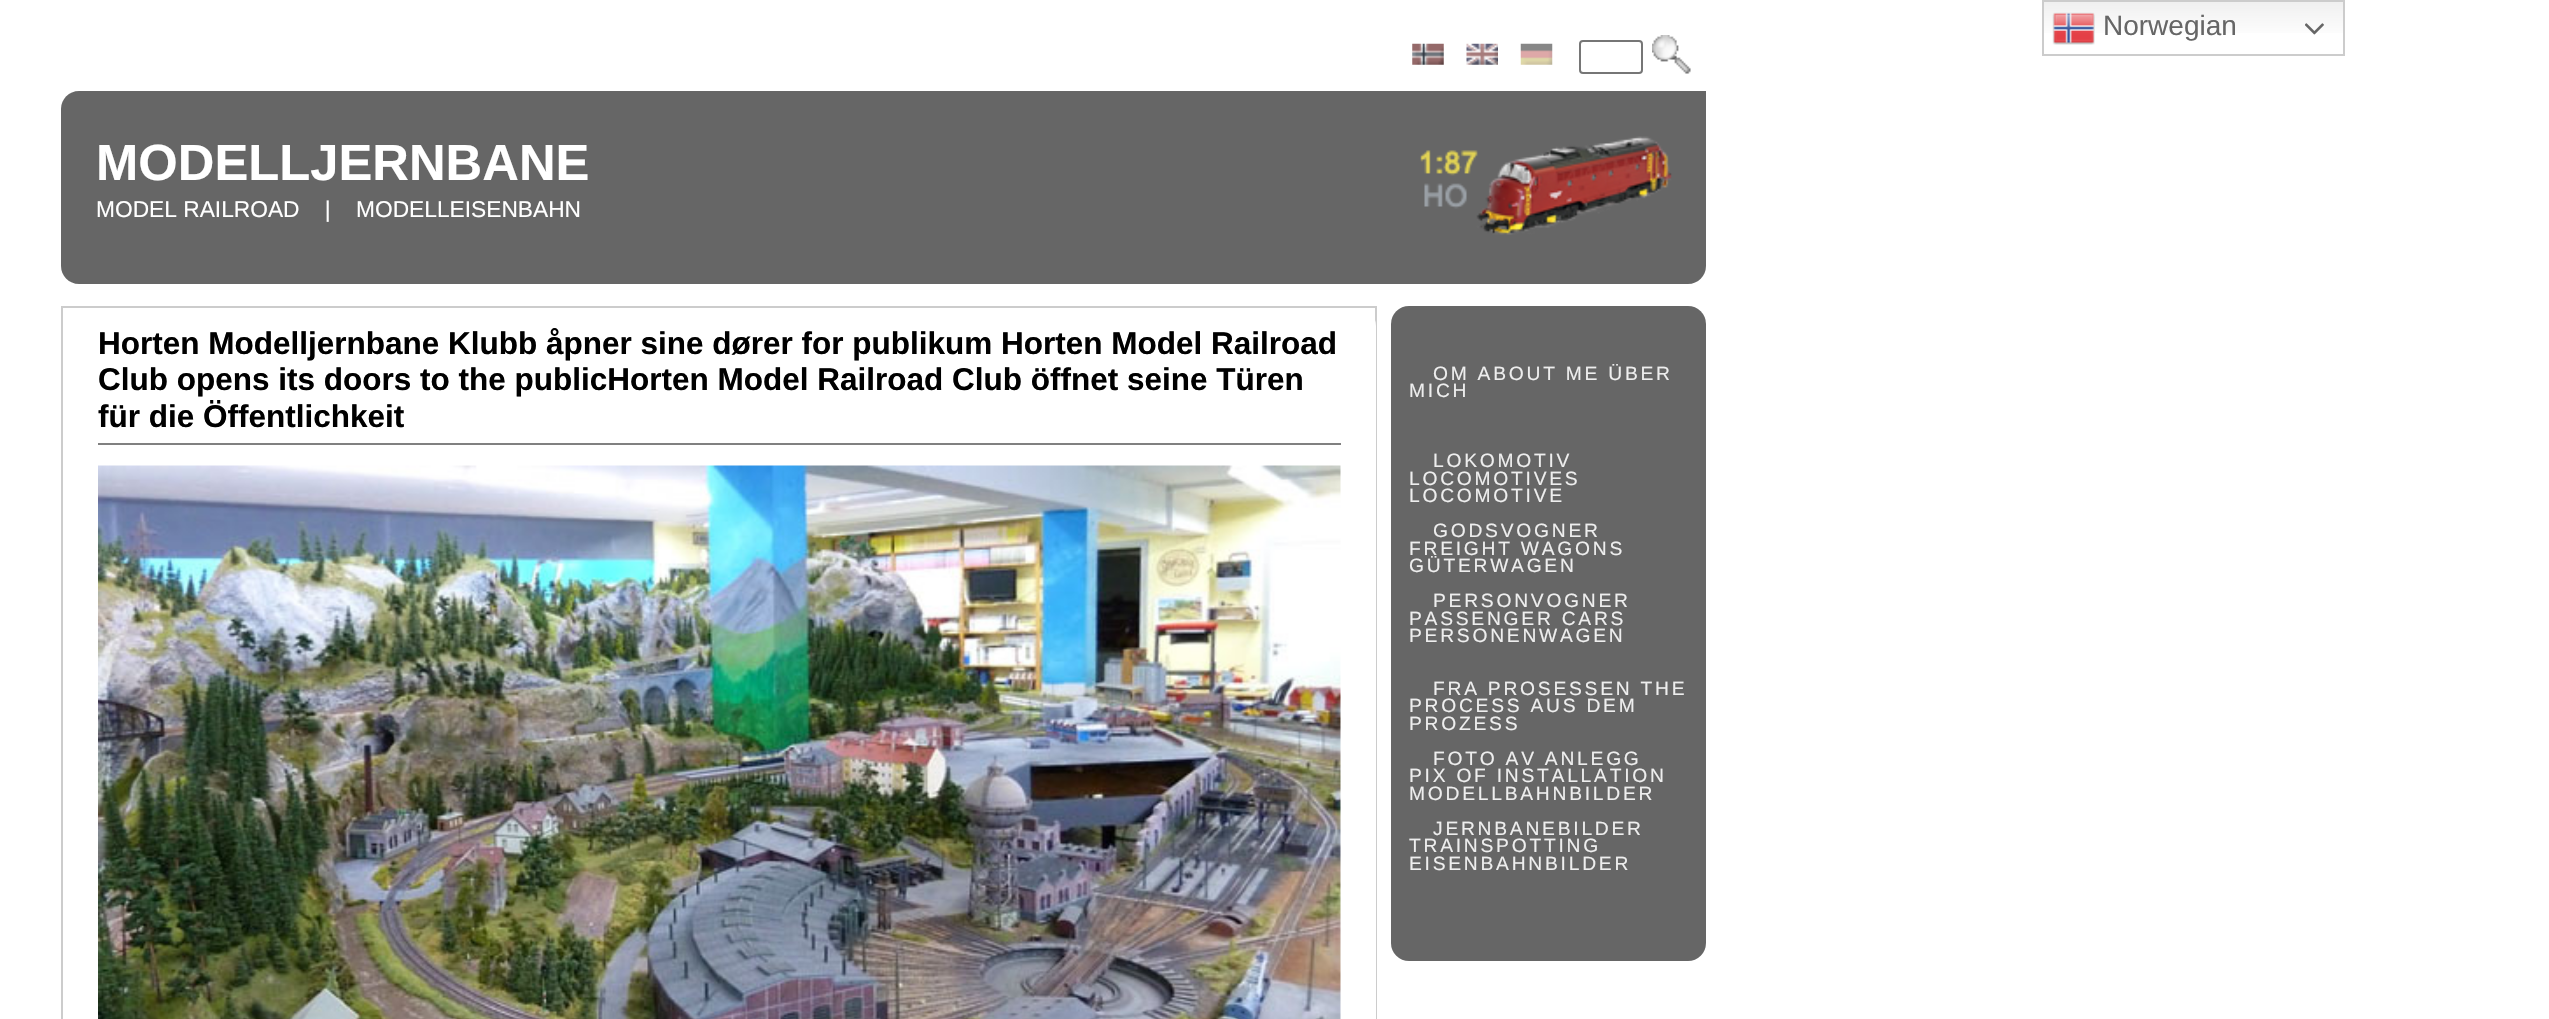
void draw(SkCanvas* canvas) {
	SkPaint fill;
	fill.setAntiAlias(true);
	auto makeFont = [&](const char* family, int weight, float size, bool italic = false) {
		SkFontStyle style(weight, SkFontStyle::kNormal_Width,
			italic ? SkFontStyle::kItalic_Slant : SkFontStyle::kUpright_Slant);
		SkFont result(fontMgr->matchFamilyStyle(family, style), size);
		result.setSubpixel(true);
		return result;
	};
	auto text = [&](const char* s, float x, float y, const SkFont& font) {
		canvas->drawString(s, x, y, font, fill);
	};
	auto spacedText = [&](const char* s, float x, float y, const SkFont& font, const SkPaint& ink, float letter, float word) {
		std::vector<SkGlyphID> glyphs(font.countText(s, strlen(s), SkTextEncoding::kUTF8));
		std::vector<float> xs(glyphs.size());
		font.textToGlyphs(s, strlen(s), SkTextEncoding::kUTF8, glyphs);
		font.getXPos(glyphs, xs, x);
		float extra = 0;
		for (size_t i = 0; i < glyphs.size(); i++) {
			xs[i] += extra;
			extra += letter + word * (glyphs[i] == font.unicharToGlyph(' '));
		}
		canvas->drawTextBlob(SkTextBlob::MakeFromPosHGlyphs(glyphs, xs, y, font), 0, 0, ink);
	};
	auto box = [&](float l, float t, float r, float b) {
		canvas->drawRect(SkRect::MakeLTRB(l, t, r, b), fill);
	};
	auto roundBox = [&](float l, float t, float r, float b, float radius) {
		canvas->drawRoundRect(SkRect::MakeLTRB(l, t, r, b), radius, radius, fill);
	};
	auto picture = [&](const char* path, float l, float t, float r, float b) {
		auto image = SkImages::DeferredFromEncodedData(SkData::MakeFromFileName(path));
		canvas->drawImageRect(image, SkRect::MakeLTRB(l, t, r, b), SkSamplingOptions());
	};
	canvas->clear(0xFFFFFFFF);
	{
		const SkColor colors[] = {0xFFEFEFEF, 0xFFFFFFFF};
		const float stops[] = {0, 0.7f};
		const SkPoint ends[] = {{2194, 0}, {2194, 56}};
		fill.setShader(SkGradientShader::MakeLinear(ends, colors, stops, 2, SkTileMode::kClamp));
		fill.setAlpha(255);
	}
	box(2044, 2, 2343, 33);
	fill.setStyle(SkPaint::kStroke_Style);
	fill.setStrokeWidth(2);
	fill.setShader(nullptr);
	fill.setColor(0xFFCCCCCC);
	canvas->drawRect(SkRect::MakeLTRB(2043, 1, 2344, 55), fill);
	picture("image0.png", 2052, 12, 2095, 45);
	picture("image1.png", 2305, 23, 2324, 35);
	picture("image2.png", 1412, 43, 1444, 65);
	picture("image3.png", 1466, 43, 1498, 65);
	picture("image4.png", 1520, 43, 1553, 65);
	fill.setColor(0xFF767676);
	canvas->drawRoundRect(SkRect::MakeLTRB(1580, 41, 1642, 73), 3, 3, fill);
	picture("image5.png", 1652, 35, 1691, 74);
	fill.setStyle(SkPaint::kFill_Style);
	fill.setColor(0xFF666666);
	canvas->drawPath(SkPathBuilder().moveTo(79, 91).lineTo(1706, 91).lineTo(1706, 266).cubicTo(1706, 276, 1698, 284, 1688, 284).lineTo(79, 284).cubicTo(69, 284, 61, 276, 61, 266).lineTo(61, 109).cubicTo(61, 99, 69, 91, 79, 91).close().detach(), fill);
	picture("image6.png", 1420, 136, 1672, 235);
	fill.setStyle(SkPaint::kStroke_Style);
	fill.setColor(0xFFCCCCCC);
	canvas->drawRect(SkRect::MakeLTRB(62, 307, 1376, 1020), fill);
	fill.setStyle(SkPaint::kFill_Style);
	fill.setColor(0xFFFFFFFF);
	canvas->drawPath(SkPathBuilder().moveTo(63, 308).lineTo(1358, 308).cubicTo(1368, 308, 1376, 316, 1376, 326).lineTo(1376, 1019).cubicTo(1376, 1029, 1368, 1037, 1358, 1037).lineTo(81, 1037).cubicTo(71, 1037, 63, 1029, 63, 1019).close().detach(), fill);
	fill.setColor(0xFF808080);
	box(98, 443, 1341, 445);
	picture("image7.png", 98, 465, 1341, 1019);
	fill.setColor(0xFF666666);
	roundBox(1391, 306, 1706, 961, 18);
	auto font1 = makeFont("Liberation Sans", 400, 28);
	text("Norwegian", 2103, 35, font1);
	auto font2 = makeFont("Liberation Sans", 700, 50.75f);
	fill.setColor(0xFFFFFFFF);
	text("MODELLJERNBANE", 96, 180, font2);
	auto font3 = makeFont("Liberation Sans", 400, 22.75f);
	text("MODEL RAILROAD    |    MODELLEISENBAHN", 96, 217, font3);
	auto font4 = makeFont("Liberation Sans", 700, 31.5f);
	fill.setColor(0xFF000000);
	text("Horten Modelljernbane Klubb åpner sine dører for publikum Horten Model Railroad", 98, 354, font4);
	text("Club opens its doors to the publicHorten Model Railroad Club öffnet seine Türen", 98, 390, font4);
	text("für die Öffentlichkeit", 98, 427, font4);
	auto font5 = makeFont("Liberation Sans", 400, 19.25f);
	fill.setColor(0xFFEEEEEE);
	spacedText("OM ABOUT ME ÜBER", 1433, 380, font5, fill, 2.75f, 0);
	spacedText("MICH", 1409, 397, font5, fill, 2.75f, 0);
	spacedText("LOKOMOTIV", 1433, 467, font5, fill, 2.75f, 0);
	spacedText("LOCOMOTIVES", 1409, 485, font5, fill, 2.75f, 0);
	spacedText("LOCOMOTIVE", 1409, 502, font5, fill, 2.75f, 0);
	spacedText("GODSVOGNER", 1433, 537, font5, fill, 2.75f, 0);
	spacedText("FREIGHT WAGONS", 1409, 555, font5, fill, 2.75f, 0);
	spacedText("GÜTERWAGEN", 1409, 572, font5, fill, 2.75f, 0);
	spacedText("PERSONVOGNER", 1433, 607, font5, fill, 2.75f, 0);
	spacedText("PASSENGER CARS", 1409, 625, font5, fill, 2.75f, 0);
	spacedText("PERSONENWAGEN", 1409, 642, font5, fill, 2.75f, 0);
	spacedText("FRA PROSESSEN THE", 1433, 695, font5, fill, 2.75f, 0);
	spacedText("PROCESS AUS DEM", 1409, 712, font5, fill, 2.75f, 0);
	spacedText("PROZESS", 1409, 730, font5, fill, 2.75f, 0);
	spacedText("FOTO AV ANLEGG", 1433, 765, font5, fill, 2.75f, 0);
	spacedText("PIX OF INSTALLATION", 1409, 782, font5, fill, 2.75f, 0);
	spacedText("MODELLBAHNBILDER", 1409, 800, font5, fill, 2.75f, 0);
	spacedText("JERNBANEBILDER", 1433, 835, font5, fill, 2.75f, 0);
	spacedText("TRAINSPOTTING", 1409, 852, font5, fill, 2.75f, 0);
	spacedText("EISENBAHNBILDER", 1409, 870, font5, fill, 2.75f, 0);
}
